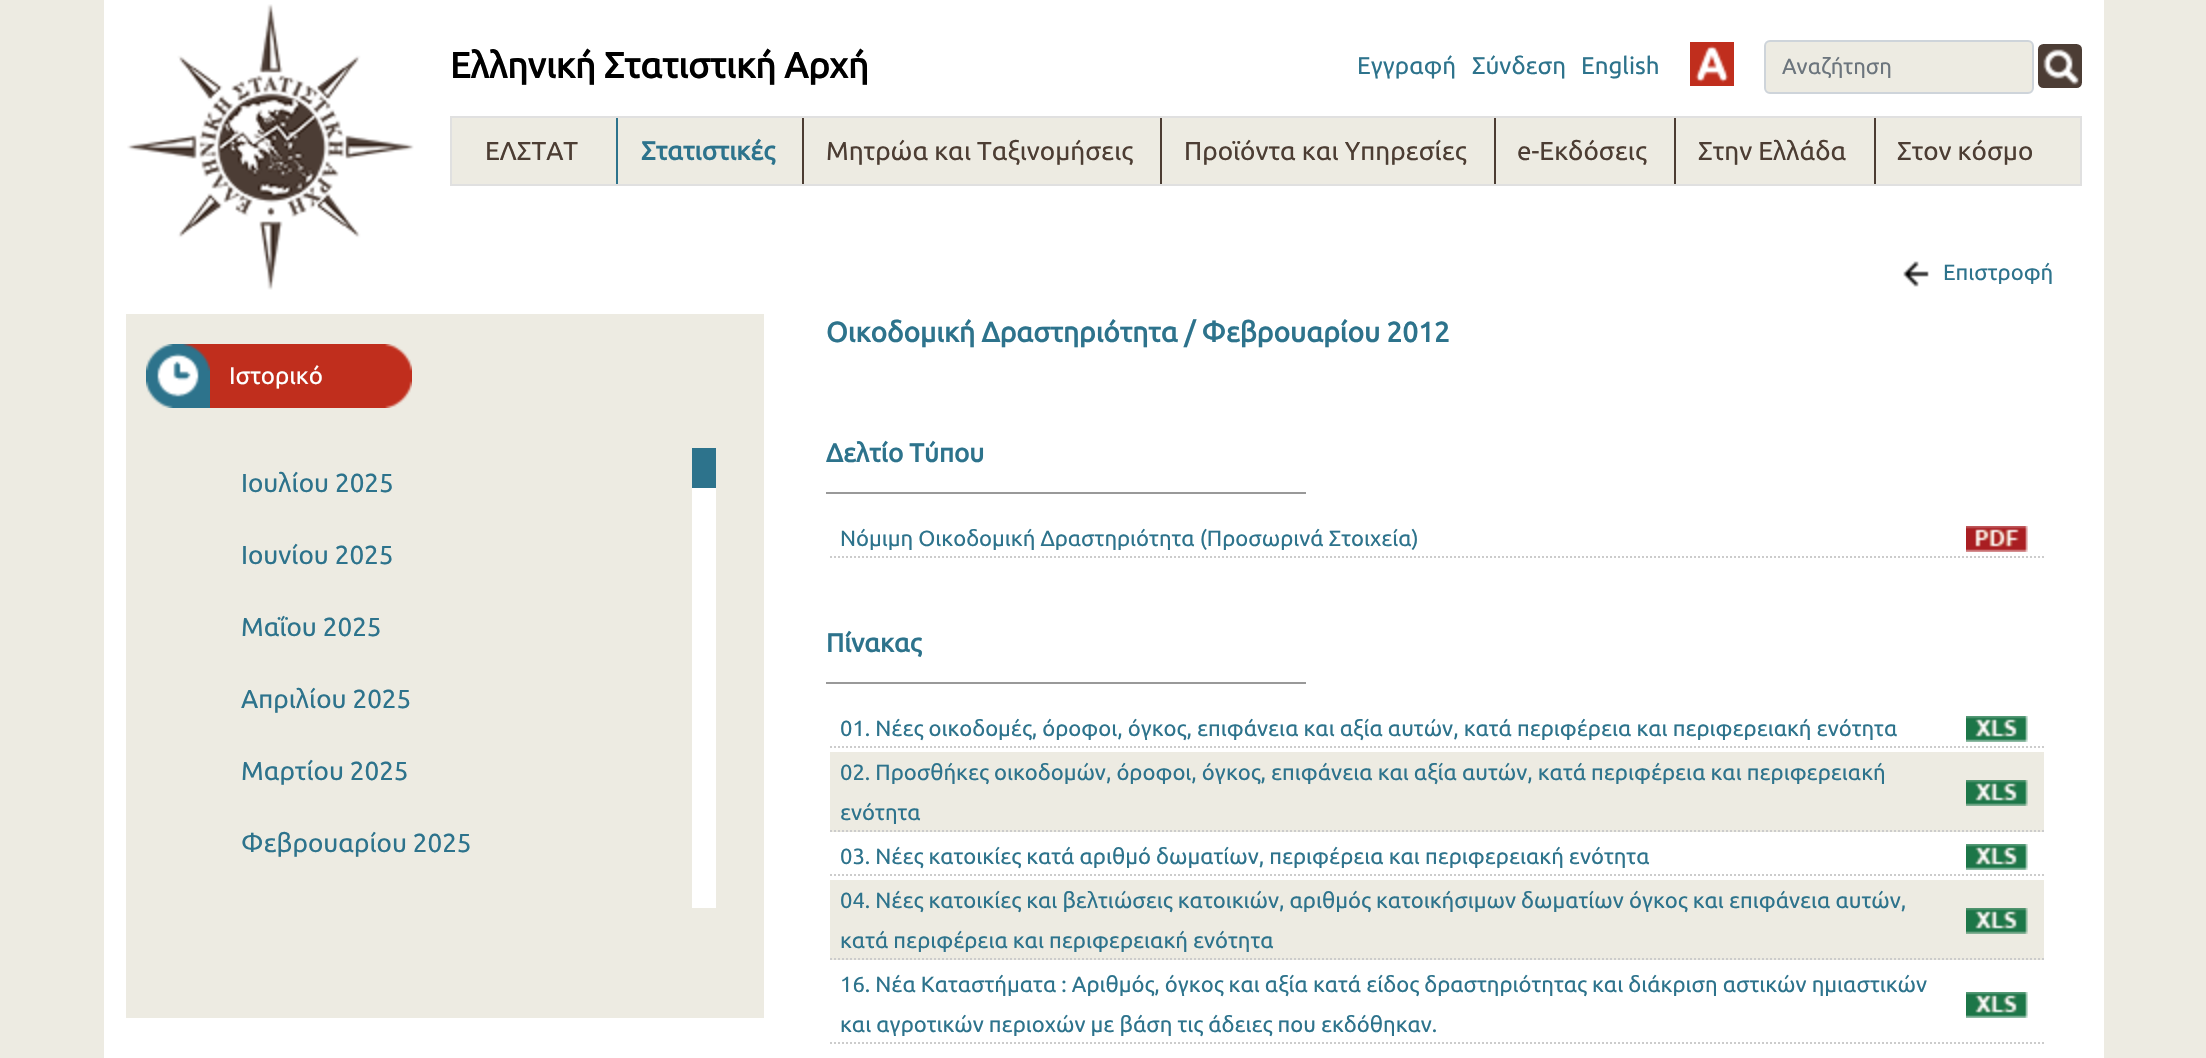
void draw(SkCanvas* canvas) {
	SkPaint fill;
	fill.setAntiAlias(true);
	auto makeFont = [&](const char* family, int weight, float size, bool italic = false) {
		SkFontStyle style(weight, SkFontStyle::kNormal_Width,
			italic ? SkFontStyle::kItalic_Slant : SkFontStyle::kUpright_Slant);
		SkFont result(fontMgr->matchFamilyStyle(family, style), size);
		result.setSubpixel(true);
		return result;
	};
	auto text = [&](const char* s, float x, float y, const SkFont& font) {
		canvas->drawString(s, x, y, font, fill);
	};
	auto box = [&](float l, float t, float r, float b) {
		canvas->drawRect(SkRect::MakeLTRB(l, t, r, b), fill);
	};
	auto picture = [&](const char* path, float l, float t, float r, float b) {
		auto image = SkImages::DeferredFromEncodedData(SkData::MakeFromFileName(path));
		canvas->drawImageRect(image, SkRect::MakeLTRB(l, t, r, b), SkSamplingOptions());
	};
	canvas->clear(0xFFEDEBE2);
	fill.setColor(0xFFFFFFFF);
	box(104, 0, 2104, 1058);
	picture("image0.png", 127, 4, 414, 290);
	picture("image1.png", 1690, 42, 1734, 86);
	fill.setColor(0xFFEDEBE2);
	canvas->drawRoundRect(SkRect::MakeLTRB(1765, 41, 2033, 93), 5, 5, fill);
	fill.setStyle(SkPaint::kStroke_Style);
	fill.setStrokeWidth(2);
	fill.setColor(0xFFCED4DA);
	canvas->drawRoundRect(SkRect::MakeLTRB(1765, 41, 2033, 93), 5, 5, fill);
	picture("image2.png", 2037, 44, 2082, 88);
	fill.setStyle(SkPaint::kFill_Style);
	fill.setColor(0xFFEDEBE2);
	canvas->drawRect(SkRect::MakeLTRB(451, 117, 2081, 185), fill);
	fill.setStyle(SkPaint::kStroke_Style);
	fill.setColor(0xFFE0E0E0);
	canvas->drawRect(SkRect::MakeLTRB(451, 117, 2081, 185), fill);
	fill.setStyle(SkPaint::kFill_Style);
	fill.setColor(0xFF2D738C);
	box(616, 118, 618, 184);
	fill.setColor(0xFF4C3D33);
	box(802, 118, 804, 184);
	box(1160, 118, 1162, 184);
	box(1494, 118, 1496, 184);
	box(1674, 118, 1676, 184);
	box(1874, 118, 1876, 184);
	fill.setColor(0xFFEDEBE2);
	box(126, 314, 764, 1018);
	picture("image3.png", 146, 344, 210, 408);
	fill.setColor(0xFFC02E1D);
	box(210, 344, 380, 408);
	picture("image4.png", 380, 344, 412, 408);
	fill.setColor(0xFFFFFFFF);
	box(692, 488, 716, 908);
	fill.setColor(0xFF2D738C);
	box(692, 448, 716, 488);
	picture("image5.png", 1903, 261, 1929, 287);
	fill.setColor(0xFF999999);
	box(826, 492, 1306, 494);
	fill.setStyle(SkPaint::kStroke_Style);
	fill.setColor(0xFFCCCCCC);
	fill.setPathEffect(SkDashPathEffect::Make({{2, 2}}, 0));
	canvas->drawPath(SkPathBuilder().moveTo(830, 557).lineTo(2044, 557).detach(), fill);
	fill.setPathEffect(nullptr);
	picture("image6.png", 1966, 526, 2028, 552);
	fill.setStyle(SkPaint::kFill_Style);
	fill.setColor(0xFF999999);
	box(826, 682, 1306, 684);
	fill.setStyle(SkPaint::kStroke_Style);
	fill.setColor(0xFFCCCCCC);
	fill.setPathEffect(SkDashPathEffect::Make({{2, 2}}, 0));
	canvas->drawPath(SkPathBuilder().moveTo(830, 747).lineTo(2044, 747).detach(), fill);
	fill.setPathEffect(nullptr);
	picture("image7.png", 1966, 716, 2028, 742);
	fill.setStyle(SkPaint::kFill_Style);
	fill.setColor(0xFFEDEBE2);
	box(830, 752, 2044, 832);
	fill.setStyle(SkPaint::kStroke_Style);
	fill.setColor(0xFFCCCCCC);
	fill.setPathEffect(SkDashPathEffect::Make({{2, 2}}, 0));
	canvas->drawPath(SkPathBuilder().moveTo(830, 831).lineTo(2044, 831).detach(), fill);
	fill.setPathEffect(nullptr);
	picture("image8.png", 1966, 780, 2028, 806);
	fill.setPathEffect(SkDashPathEffect::Make({{2, 2}}, 0));
	canvas->drawPath(SkPathBuilder().moveTo(830, 875).lineTo(2044, 875).detach(), fill);
	fill.setPathEffect(nullptr);
	picture("image7.png", 1966, 844, 2028, 870);
	fill.setStyle(SkPaint::kFill_Style);
	fill.setColor(0xFFEDEBE2);
	box(830, 880, 2044, 960);
	fill.setStyle(SkPaint::kStroke_Style);
	fill.setColor(0xFFCCCCCC);
	fill.setPathEffect(SkDashPathEffect::Make({{2, 2}}, 0));
	canvas->drawPath(SkPathBuilder().moveTo(830, 959).lineTo(2044, 959).detach(), fill);
	fill.setPathEffect(nullptr);
	picture("image8.png", 1966, 908, 2028, 934);
	fill.setPathEffect(SkDashPathEffect::Make({{2, 2}}, 0));
	canvas->drawPath(SkPathBuilder().moveTo(830, 1043).lineTo(2044, 1043).detach(), fill);
	fill.setPathEffect(nullptr);
	picture("image7.png", 1966, 992, 2028, 1018);
	auto font1 = makeFont("Ubuntu", 700, 36);
	fill.setStyle(SkPaint::kFill_Style);
	fill.setColor(0xFF000000);
	text("Ελληνική Στατιστική Αρχή", 450, 78, font1);
	auto font2 = makeFont("Ubuntu", 400, 24);
	fill.setColor(0xFF2D738C);
	text("Εγγραφή", 1357, 74, font2);
	text("Σύνδεση", 1472, 74, font2);
	text("English", 1581, 74, font2);
	canvas->save();
	canvas->clipRect(SkRect::MakeLTRB(1782, 54, 2016, 78));
	auto font3 = makeFont("Ubuntu", 400, 22);
	fill.setColor(0xFF6C757D);
	text("Αναζήτηση", 1782, 74, font3);
	canvas->restore();
	auto font4 = makeFont("Ubuntu", 400, 26);
	fill.setColor(0xFF4C3D33);
	text("ΕΛΣΤΑΤ", 485, 160, font4);
	auto font5 = makeFont("Ubuntu", 700, 26);
	fill.setColor(0xFF2D738C);
	text("Στατιστικές", 641, 160, font5);
	fill.setColor(0xFF4C3D33);
	text("Μητρώα και Ταξινομήσεις", 826, 160, font4);
	text("Προϊόντα και Υπηρεσίες", 1184, 160, font4);
	text("e-Εκδόσεις", 1517, 160, font4);
	text("Στην Ελλάδα", 1698, 160, font4);
	text("Στον κόσμο", 1897, 160, font4);
	fill.setColor(0xFFFFFFFF);
	text("Ιστορικό", 229, 384, font2);
	fill.setColor(0xFF2D738C);
	text("Ιουλίου 2025", 241, 492, font4);
	text("Ιουνίου 2025", 241, 564, font4);
	text("Μαΐου 2025", 241, 636, font4);
	text("Απριλίου 2025", 241, 708, font4);
	text("Μαρτίου 2025", 241, 780, font4);
	text("Φεβρουαρίου 2025", 241, 852, font4);
	text("Επιστροφή", 1943, 280, font3);
	auto font6 = makeFont("Ubuntu", 700, 28);
	text("Οικοδομική Δραστηριότητα / Φεβρουαρίου 2012", 826, 342, font6);
	text("Δελτίο Τύπου", 826, 462, font5);
	text("Νόμιμη Οικοδομική Δραστηριότητα (Προσωρινά Στοιχεία)", 840, 546, font3);
	text("Πίνακας", 826, 652, font5);
	text("01. Νέες οικοδομές, όροφοι, όγκος, επιφάνεια και αξία αυτών, κατά περιφέρεια και περιφερειακή ενότητα", 840, 736, font3);
	text("02. Προσθήκες οικοδομών, όροφοι, όγκος, επιφάνεια και αξία αυτών, κατά περιφέρεια και περιφερειακή", 840, 780, font3);
	text("ενότητα", 840, 820, font3);
	text("03. Νέες κατοικίες κατά αριθμό δωματίων, περιφέρεια και περιφερειακή ενότητα", 840, 864, font3);
	text("04. Νέες κατοικίες και βελτιώσεις κατοικιών, αριθμός κατοικήσιμων δωματίων όγκος και επιφάνεια αυτών,", 840, 908, font3);
	text("κατά περιφέρεια και περιφερειακή ενότητα", 840, 948, font3);
	text("16. Νέα Καταστήματα : Αριθμός, όγκος και αξία κατά είδος δραστηριότητας και διάκριση αστικών ημιαστικών", 840, 992, font3);
	text("και αγροτικών περιοχών με βάση τις άδειες που εκδόθηκαν.", 840, 1032, font3);
}
